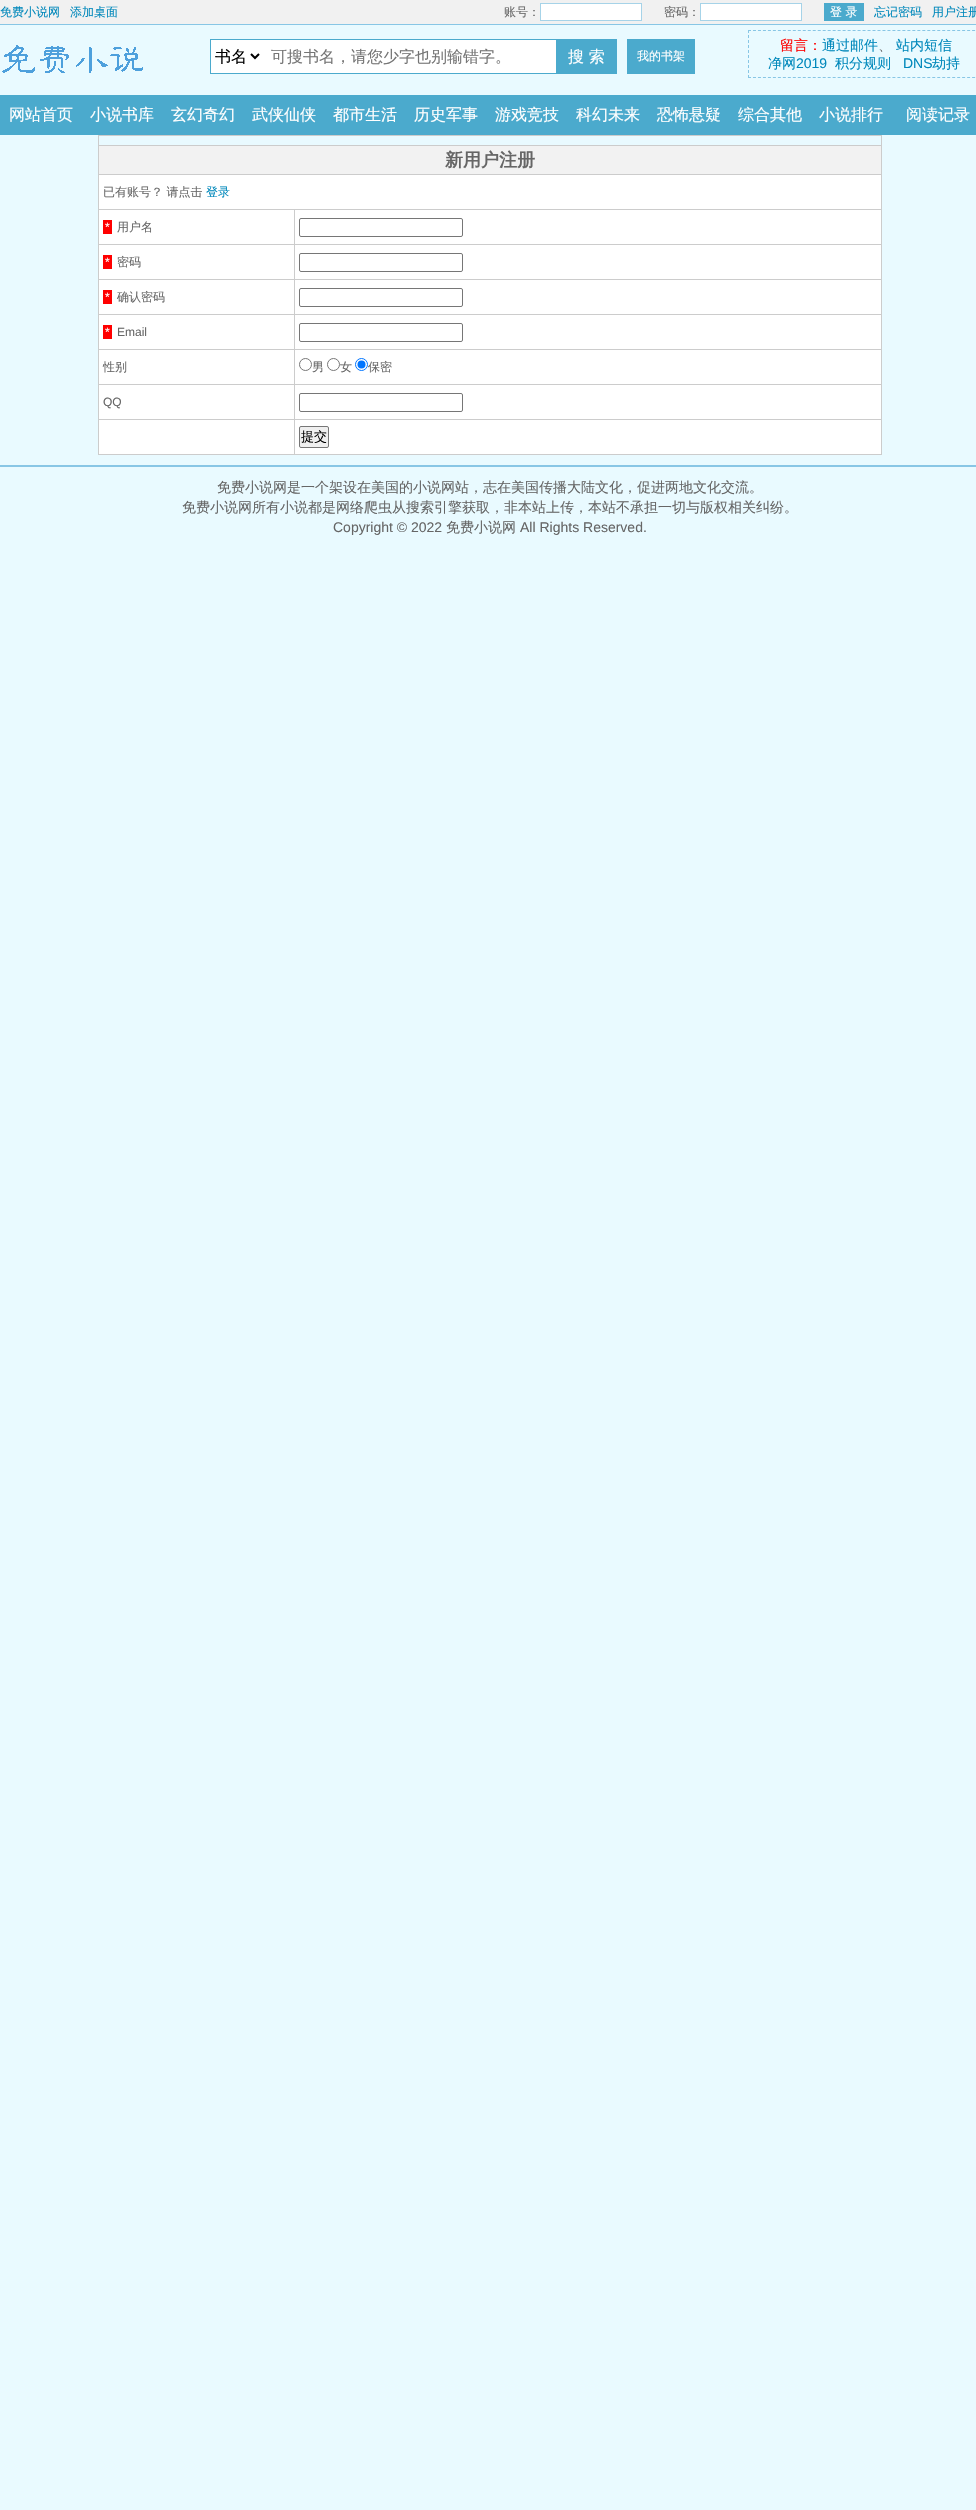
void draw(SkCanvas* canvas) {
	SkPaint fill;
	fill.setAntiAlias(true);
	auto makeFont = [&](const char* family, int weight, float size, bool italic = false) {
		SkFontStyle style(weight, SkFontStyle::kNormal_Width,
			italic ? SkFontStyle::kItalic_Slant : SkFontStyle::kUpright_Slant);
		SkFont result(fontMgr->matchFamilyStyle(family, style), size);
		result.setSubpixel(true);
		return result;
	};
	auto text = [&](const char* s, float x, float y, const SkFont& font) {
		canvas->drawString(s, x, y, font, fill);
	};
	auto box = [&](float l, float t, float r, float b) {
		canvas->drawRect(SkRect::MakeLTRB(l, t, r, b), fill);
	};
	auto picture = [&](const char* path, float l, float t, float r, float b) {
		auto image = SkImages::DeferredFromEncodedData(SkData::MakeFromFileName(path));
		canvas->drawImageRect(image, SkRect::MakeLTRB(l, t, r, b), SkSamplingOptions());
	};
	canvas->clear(0xFFE9FAFF);
	fill.setColor(0xFFF1F1F1);
	box(0, 0, 976, 24);
	fill.setColor(0xFF88C6E5);
	box(0, 24, 976, 25);
	fill.setColor(0xFFFFFFFF);
	canvas->drawRect(SkRect::MakeLTRB(540.5f, 3.5f, 641.5f, 20.5f), fill);
	fill.setStyle(SkPaint::kStroke_Style);
	fill.setStrokeWidth(1);
	fill.setColor(0xFFA6D3E8);
	canvas->drawRect(SkRect::MakeLTRB(540.5f, 3.5f, 641.5f, 20.5f), fill);
	fill.setStyle(SkPaint::kFill_Style);
	fill.setColor(0xFFFFFFFF);
	canvas->drawRect(SkRect::MakeLTRB(700.5f, 3.5f, 801.5f, 20.5f), fill);
	fill.setStyle(SkPaint::kStroke_Style);
	fill.setColor(0xFFA6D3E8);
	canvas->drawRect(SkRect::MakeLTRB(700.5f, 3.5f, 801.5f, 20.5f), fill);
	fill.setStyle(SkPaint::kFill_Style);
	fill.setColor(0xFF4BAACD);
	box(824, 3, 864, 21);
	picture("image0.png", 2, 45, 143, 73);
	fill.setColor(0xFFFFFFFF);
	box(211, 40, 556, 73);
	fill.setStyle(SkPaint::kStroke_Style);
	fill.setColor(0xFF4BAACD);
	canvas->drawRect(SkRect::MakeLTRB(210.5f, 39.5f, 616.5f, 73.5f), fill);
	fill.setStrokeWidth(2);
	fill.setColor(0xFF000000);
	canvas->drawPath(SkPathBuilder().moveTo(251, 54).lineTo(255, 58).lineTo(259, 54).detach(), fill);
	fill.setStyle(SkPaint::kFill_Style);
	fill.setColor(0xFF4BAACD);
	box(556, 40, 616, 73);
	box(627, 39, 695, 74);
	fill.setStyle(SkPaint::kStroke_Style);
	fill.setStrokeWidth(1);
	fill.setColor(0xFF88C6E5);
	fill.setPathEffect(SkDashPathEffect::Make({{3, 1.98f}}, 0));
	canvas->drawPath(SkPathBuilder().moveTo(748, 30.5f).lineTo(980, 30.5f).detach(), fill);
	fill.setPathEffect(nullptr);
	fill.setPathEffect(SkDashPathEffect::Make({{3, 1.98f}}, 0));
	canvas->drawPath(SkPathBuilder().moveTo(748, 77.5f).lineTo(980, 77.5f).detach(), fill);
	fill.setPathEffect(nullptr);
	fill.setPathEffect(SkDashPathEffect::Make({{3, 2}}, 0));
	canvas->drawPath(SkPathBuilder().moveTo(748.5f, 30).lineTo(748.5f, 78).detach(), fill);
	fill.setPathEffect(nullptr);
	fill.setStyle(SkPaint::kFill_Style);
	fill.setColor(0xFF4BAACD);
	box(0, 95, 976, 135);
	fill.setColor(0xFFCCCCCC);
	box(98, 135, 882, 136);
	box(98, 145, 882, 146);
	box(881, 135, 882, 455);
	box(98, 454, 882, 455);
	box(98, 135, 99, 455);
	fill.setColor(0xFFF2F2F2);
	box(99, 146, 881, 174);
	fill.setColor(0xFFFFFFFF);
	box(99, 175, 881, 209);
	fill.setColor(0xFFCCCCCC);
	box(98, 174, 882, 175);
	fill.setColor(0xFFFFFFFF);
	box(99, 210, 294, 244);
	fill.setColor(0xFFCCCCCC);
	box(294, 209, 882, 210);
	box(294, 244, 882, 245);
	box(294, 279, 882, 280);
	box(294, 314, 882, 315);
	box(294, 349, 882, 350);
	box(294, 384, 882, 385);
	box(294, 419, 882, 420);
	box(294, 419, 295, 455);
	box(98, 419, 295, 420);
	box(294, 384, 295, 420);
	box(98, 384, 295, 385);
	box(294, 349, 295, 385);
	box(98, 349, 295, 350);
	box(294, 314, 295, 350);
	box(98, 314, 295, 315);
	box(294, 279, 295, 315);
	box(98, 279, 295, 280);
	box(294, 244, 295, 280);
	box(98, 244, 295, 245);
	box(294, 209, 295, 245);
	box(98, 209, 295, 210);
	fill.setColor(0xFFFF0000);
	box(103, 220, 112, 234);
	fill.setColor(0xFFFFFFFF);
	box(295, 210, 881, 244);
	fill.setStyle(SkPaint::kStroke_Style);
	fill.setColor(0xFF767676);
	canvas->drawRoundRect(SkRect::MakeLTRB(299.5f, 218.5f, 462.5f, 236.5f), 1.5f, 1.5f, fill);
	fill.setStyle(SkPaint::kFill_Style);
	fill.setColor(0xFFFFFFFF);
	box(99, 245, 294, 279);
	fill.setColor(0xFFFF0000);
	box(103, 255, 112, 269);
	fill.setColor(0xFFFFFFFF);
	box(295, 245, 881, 279);
	fill.setStyle(SkPaint::kStroke_Style);
	fill.setColor(0xFF767676);
	canvas->drawRoundRect(SkRect::MakeLTRB(299.5f, 253.5f, 462.5f, 271.5f), 1.5f, 1.5f, fill);
	fill.setStyle(SkPaint::kFill_Style);
	fill.setColor(0xFFFFFFFF);
	box(99, 280, 294, 314);
	fill.setColor(0xFFFF0000);
	box(103, 290, 112, 304);
	fill.setColor(0xFFFFFFFF);
	box(295, 280, 881, 314);
	fill.setStyle(SkPaint::kStroke_Style);
	fill.setColor(0xFF767676);
	canvas->drawRoundRect(SkRect::MakeLTRB(299.5f, 288.5f, 462.5f, 306.5f), 1.5f, 1.5f, fill);
	fill.setStyle(SkPaint::kFill_Style);
	fill.setColor(0xFFFFFFFF);
	box(99, 315, 294, 349);
	fill.setColor(0xFFFF0000);
	box(103, 325, 112, 339);
	fill.setColor(0xFFFFFFFF);
	box(295, 315, 881, 349);
	fill.setStyle(SkPaint::kStroke_Style);
	fill.setColor(0xFF767676);
	canvas->drawRoundRect(SkRect::MakeLTRB(299.5f, 323.5f, 462.5f, 341.5f), 1.5f, 1.5f, fill);
	fill.setStyle(SkPaint::kFill_Style);
	fill.setColor(0xFFFFFFFF);
	box(99, 350, 294, 384);
	box(295, 350, 881, 384);
	fill.setStyle(SkPaint::kStroke_Style);
	fill.setColor(0xFF767676);
	canvas->drawCircle(305.5f, 364.5f, 6, fill);
	canvas->drawCircle(333.5f, 364.5f, 6, fill);
	fill.setColor(0xFF0075FF);
	canvas->drawCircle(361.5f, 364.5f, 6, fill);
	fill.setStyle(SkPaint::kFill_Style);
	canvas->drawCircle(361.5f, 364.5f, 4, fill);
	fill.setColor(0xFFFFFFFF);
	box(99, 385, 294, 419);
	box(295, 385, 881, 419);
	fill.setStyle(SkPaint::kStroke_Style);
	fill.setColor(0xFF767676);
	canvas->drawRoundRect(SkRect::MakeLTRB(299.5f, 393.5f, 462.5f, 411.5f), 1.5f, 1.5f, fill);
	fill.setStyle(SkPaint::kFill_Style);
	fill.setColor(0xFFFFFFFF);
	box(99, 420, 294, 454);
	box(295, 420, 881, 454);
	fill.setColor(0xFFEFEFEF);
	canvas->drawRoundRect(SkRect::MakeLTRB(299.5f, 426.5f, 328.5f, 447.5f), 1.5f, 1.5f, fill);
	fill.setStyle(SkPaint::kStroke_Style);
	fill.setColor(0xFF767676);
	canvas->drawRoundRect(SkRect::MakeLTRB(299.5f, 426.5f, 328.5f, 447.5f), 1.5f, 1.5f, fill);
	fill.setStyle(SkPaint::kFill_Style);
	fill.setColor(0xFF88C6E5);
	box(0, 465, 976, 467);
	auto font1 = makeFont("WenQuanYi Zen Hei", 500, 12);
	fill.setColor(0xFF0088BB);
	text("免费小说网", 0, 16, font1);
	text("添加桌面", 70, 16, font1);
	fill.setColor(0xFF666666);
	text("账号：", 504, 16, font1);
	text("密码：", 664, 16, font1);
	fill.setColor(0xFFFFFFFF);
	text("登 录", 830, 16, font1);
	fill.setColor(0xFF0088BB);
	text("忘记密码", 874, 16, font1);
	text("用户注册", 932, 16, font1);
	auto font2 = makeFont("WenQuanYi Zen Hei", 500, 16);
	fill.setColor(0xFF000000);
	text("书名", 215, 62, font2);
	fill.setColor(0xFF757575);
	text("可搜书名，请您少字也别输错字。", 271, 62, font2);
	fill.setColor(0xFFFFFFFF);
	text("搜 索", 568, 62, font2);
	text("我的书架", 637, 60, font1);
	auto font3 = makeFont("WenQuanYi Zen Hei", 500, 14);
	fill.setColor(0xFFFF0000);
	text("留言：", 780, 50, font3);
	fill.setColor(0xFF0088BB);
	text("通过邮件", 822, 50, font3);
	fill.setColor(0xFF666666);
	text("、", 878, 50, font3);
	fill.setColor(0xFF0088BB);
	text("站内短信", 896, 50, font3);
	text("净网", 768, 68, font3);
	auto font4 = makeFont("Liberation Sans", 400, 14);
	text("2019", 796, 68, font4);
	text("积分规则", 835, 68, font3);
	text("DNS", 903, 68, font4);
	text("劫持", 932, 68, font3);
	fill.setColor(0xFFFFFFFF);
	text("网站首页", 9, 120, font2);
	text("小说书库", 90, 120, font2);
	text("玄幻奇幻", 171, 120, font2);
	text("武侠仙侠", 252, 120, font2);
	text("都市生活", 333, 120, font2);
	text("历史军事", 414, 120, font2);
	text("游戏竞技", 495, 120, font2);
	text("科幻未来", 576, 120, font2);
	text("恐怖悬疑", 657, 120, font2);
	text("综合其他", 738, 120, font2);
	text("小说排行", 819, 120, font2);
	text("阅读记录", 906, 120, font2);
	auto font5 = makeFont("WenQuanYi Zen Hei", 700, 18);
	fill.setColor(0xFF666666);
	text("新用户注册", 445, 166, font5);
	text("已有账号？ 请点击", 103, 196, font1);
	fill.setColor(0xFF0088BB);
	text("登录", 206, 196, font1);
	auto font6 = makeFont("Liberation Sans", 400, 12);
	fill.setColor(0xFFFFFFFF);
	text("*", 105, 231, font6);
	fill.setColor(0xFF666666);
	text("用户名", 117, 231, font1);
	fill.setColor(0xFFFFFFFF);
	text("*", 105, 266, font6);
	fill.setColor(0xFF666666);
	text("密码", 117, 266, font1);
	fill.setColor(0xFFFFFFFF);
	text("*", 105, 301, font6);
	fill.setColor(0xFF666666);
	text("确认密码", 117, 301, font1);
	fill.setColor(0xFFFFFFFF);
	text("*", 105, 336, font6);
	fill.setColor(0xFF666666);
	text("Email", 117, 336, font6);
	text("性别", 103, 371, font1);
	text("男", 312, 371, font1);
	text("女", 340, 371, font1);
	text("保密", 368, 371, font1);
	text("QQ", 103, 406, font6);
	auto font7 = makeFont("WenQuanYi Zen Hei", 500, 13);
	fill.setColor(0xFF000000);
	text("提交", 301, 441, font7);
	fill.setColor(0xFF666666);
	text("免费小说网是一个架设在美国的小说网站，志在美国传播大陆文化，促进两地文化交流。", 217, 492, font3);
	text("免费小说网所有小说都是网络爬虫从搜索引擎获取，非本站上传，本站不承担一切与版权相关纠纷。", 182, 512, font3);
	text("Copyright © 2022", 333, 532, font4);
	text("免费小说网", 446, 532, font3);
	text("All Rights Reserved.", 520, 532, font4);
}
